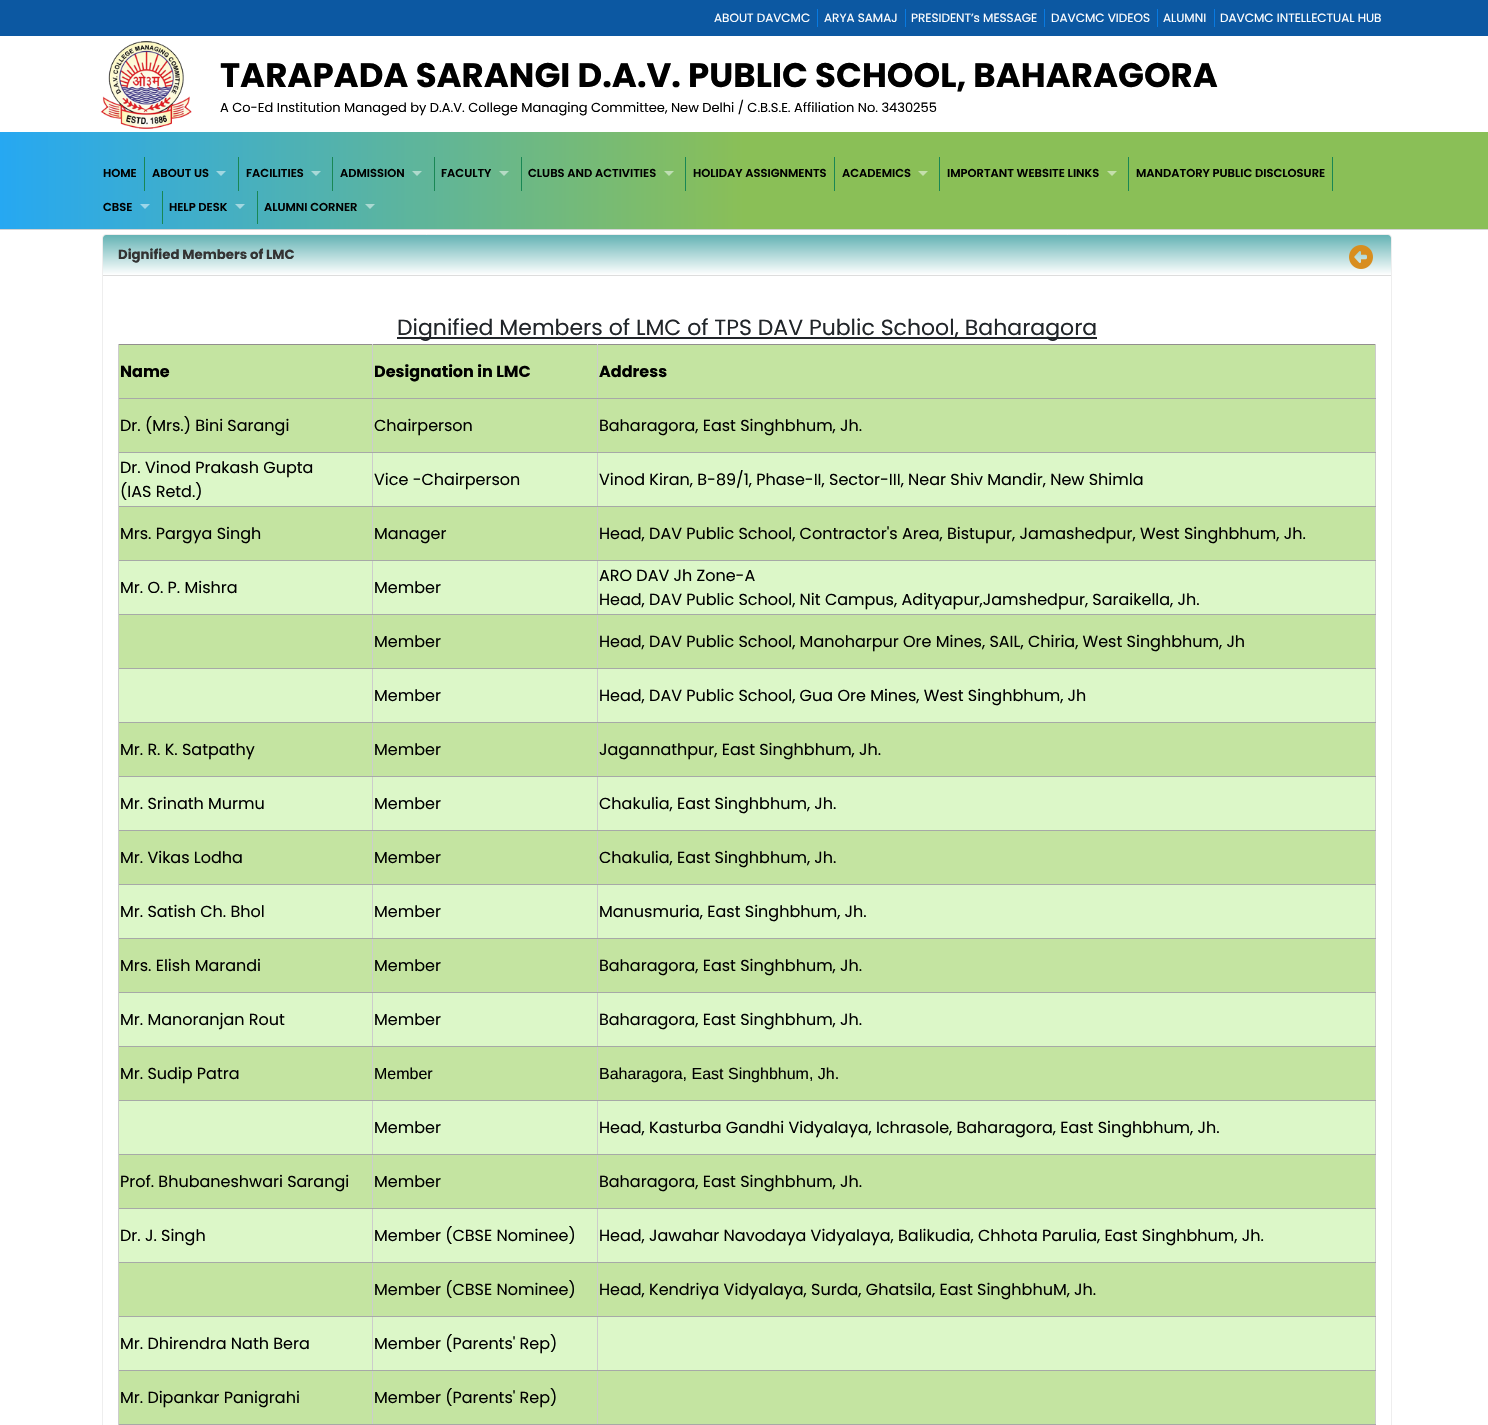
void draw(SkCanvas* canvas) {
	SkPaint fill;
	fill.setAntiAlias(true);
	auto makeFont = [&](const char* family, int weight, float size, bool italic = false) {
		SkFontStyle style(weight, SkFontStyle::kNormal_Width,
			italic ? SkFontStyle::kItalic_Slant : SkFontStyle::kUpright_Slant);
		SkFont result(fontMgr->matchFamilyStyle(family, style), size);
		result.setSubpixel(true);
		return result;
	};
	auto text = [&](const char* s, float x, float y, const SkFont& font) {
		canvas->drawString(s, x, y, font, fill);
	};
	auto box = [&](float l, float t, float r, float b) {
		canvas->drawRect(SkRect::MakeLTRB(l, t, r, b), fill);
	};
	auto picture = [&](const char* path, float l, float t, float r, float b) {
		auto image = SkImages::DeferredFromEncodedData(SkData::MakeFromFileName(path));
		canvas->drawImageRect(image, SkRect::MakeLTRB(l, t, r, b), SkSamplingOptions());
	};
	canvas->clear(0xFFFFFFFF);
	fill.setColor(0xFF0C58A2);
	box(0, 0, 1488, 36);
	fill.setColor(0xFF087AE1);
	box(817, 9, 818, 27);
	box(905, 9, 906, 27);
	box(1044, 9, 1045, 27);
	box(1157, 9, 1158, 27);
	box(1214, 9, 1215, 27);
	picture("image0.png", 100, 41, 192, 129);
	{
		const SkColor colors[] = {0xFF26A8F2, 0xFF8ABF57};
		const float stops[] = {0, 0.5f};
		const SkPoint ends[] = {{0, 181}, {1488, 180}};
		fill.setShader(SkGradientShader::MakeLinear(ends, colors, stops, 2, SkTileMode::kClamp));
		fill.setAlpha(255);
	}
	box(0, 132, 1488, 229);
	fill.setShader(nullptr);
	fill.setColor(0xFFD3D3D4);
	box(0, 229, 1488, 230);
	fill.setColor(0xFF198754);
	box(144, 157, 145, 191);
	box(238, 157, 239, 191);
	fill.setColor(0xFFA1D7E1);
	canvas->drawPath(SkPathBuilder().moveTo(216, 171).lineTo(226, 171).lineTo(221, 176).close().detach(), fill);
	fill.setColor(0xFF198754);
	box(332, 157, 333, 191);
	fill.setColor(0xFFA8D9D8);
	canvas->drawPath(SkPathBuilder().moveTo(311, 171).lineTo(321, 171).lineTo(316, 176).close().detach(), fill);
	fill.setColor(0xFF198754);
	box(434, 157, 435, 191);
	fill.setColor(0xFFAFDACD);
	canvas->drawPath(SkPathBuilder().moveTo(412, 171).lineTo(422, 171).lineTo(417, 176).close().detach(), fill);
	fill.setColor(0xFF198754);
	box(521, 157, 522, 191);
	fill.setColor(0xFFB4DBC4);
	canvas->drawPath(SkPathBuilder().moveTo(499, 171).lineTo(509, 171).lineTo(504, 176).close().detach(), fill);
	fill.setColor(0xFF198754);
	box(685, 157, 686, 191);
	fill.setColor(0xFFBFDEB3);
	canvas->drawPath(SkPathBuilder().moveTo(664, 171).lineTo(674, 171).lineTo(669, 176).close().detach(), fill);
	fill.setColor(0xFF198754);
	box(834, 157, 835, 191);
	box(939, 157, 940, 191);
	fill.setColor(0xFFC5DFAB);
	canvas->drawPath(SkPathBuilder().moveTo(918, 171).lineTo(928, 171).lineTo(923, 176).close().detach(), fill);
	fill.setColor(0xFF198754);
	box(1128, 157, 1129, 191);
	fill.setColor(0xFFC5DFAB);
	canvas->drawPath(SkPathBuilder().moveTo(1107, 171).lineTo(1117, 171).lineTo(1112, 176).close().detach(), fill);
	fill.setColor(0xFF198754);
	box(1332, 157, 1333, 191);
	box(162, 191, 163, 224);
	fill.setColor(0xFF9CD6E9);
	canvas->drawPath(SkPathBuilder().moveTo(140, 204).lineTo(150, 204).lineTo(145, 209).close().detach(), fill);
	fill.setColor(0xFF198754);
	box(257, 191, 258, 224);
	fill.setColor(0xFFA3D7E0);
	canvas->drawPath(SkPathBuilder().moveTo(235, 204).lineTo(245, 204).lineTo(240, 209).close().detach(), fill);
	fill.setColor(0xFFABD9D2);
	canvas->drawPath(SkPathBuilder().moveTo(365, 204).lineTo(375, 204).lineTo(370, 209).close().detach(), fill);
	fill.setStyle(SkPaint::kStroke_Style);
	fill.setStrokeWidth(1);
	fill.setColor(0xFFEEEEEE);
	canvas->drawRoundRect(SkRect::MakeLTRB(102.5f, 234.5f, 1391.5f, 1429.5f), 3.5f, 3.5f, fill);
	fill.setStyle(SkPaint::kFill_Style);
	{
		const SkColor colors[] = {0xFF64B3B4, 0xFFFFFFFF};
		const float stops[] = {0, 1};
		const SkPoint ends[] = {{747, 235}, {747, 275}};
		fill.setShader(SkGradientShader::MakeLinear(ends, colors, stops, 2, SkTileMode::kClamp));
		fill.setAlpha(255);
	}
	canvas->drawPath(SkPathBuilder().moveTo(106, 235).lineTo(1388, 235).cubicTo(1389.5f, 235, 1391, 236.5f, 1391, 238).lineTo(1391, 275).lineTo(103, 275).lineTo(103, 238).cubicTo(103, 236.5f, 104.5f, 235, 106, 235).close().detach(), fill);
	fill.setShader(nullptr);
	fill.setColor(0xFFDDDDDD);
	box(103, 275, 1391, 276);
	picture("image1.png", 1349, 245, 1373, 269);
	fill.setColor(0xFF212529);
	box(397, 337, 1097, 339);
	fill.setColor(0xFF928E8E);
	box(118, 344, 1376, 345);
	fill.setColor(0xFFC4E4A1);
	box(119, 345, 1375, 398);
	box(119, 399, 1375, 452);
	fill.setColor(0xFFDCF7C8);
	box(119, 453, 1375, 506);
	fill.setColor(0xFFC4E4A1);
	box(119, 507, 1375, 560);
	fill.setColor(0xFFDCF7C8);
	box(119, 561, 1375, 614);
	fill.setColor(0xFFC4E4A1);
	box(119, 615, 1375, 668);
	fill.setColor(0xFFDCF7C8);
	box(119, 669, 1375, 722);
	fill.setColor(0xFFC4E4A1);
	box(119, 723, 1375, 776);
	fill.setColor(0xFFDCF7C8);
	box(119, 777, 1375, 830);
	fill.setColor(0xFFC4E4A1);
	box(119, 831, 1375, 884);
	fill.setColor(0xFFDCF7C8);
	box(119, 885, 1375, 938);
	fill.setColor(0xFFC4E4A1);
	box(119, 939, 1375, 992);
	fill.setColor(0xFFDCF7C8);
	box(119, 993, 1375, 1046);
	fill.setColor(0xFFC4E4A1);
	box(119, 1047, 1375, 1100);
	fill.setColor(0xFFDCF7C8);
	box(119, 1101, 1375, 1154);
	fill.setColor(0xFFC4E4A1);
	box(119, 1155, 1375, 1208);
	fill.setColor(0xFFDCF7C8);
	box(119, 1209, 1375, 1262);
	fill.setColor(0xFFC4E4A1);
	box(119, 1263, 1375, 1316);
	fill.setColor(0xFFDCF7C8);
	box(119, 1317, 1375, 1370);
	fill.setColor(0xFFC4E4A1);
	box(119, 1371, 1375, 1424);
	fill.setColor(0xFFCCCCCC);
	box(1375, 344, 1376, 1425);
	fill.setColor(0xFFA7A9A7);
	box(597, 1424, 1376, 1425);
	fill.setColor(0xFFCCCCCC);
	box(597, 1370, 598, 1425);
	fill.setColor(0xFFA7A9A7);
	box(597, 1370, 1376, 1371);
	fill.setColor(0xFFCCCCCC);
	box(597, 1316, 598, 1371);
	fill.setColor(0xFFA7A9A7);
	box(597, 1316, 1376, 1317);
	fill.setColor(0xFFCCCCCC);
	box(597, 1262, 598, 1317);
	fill.setColor(0xFFA7A9A7);
	box(597, 1262, 1376, 1263);
	fill.setColor(0xFFCCCCCC);
	box(597, 1208, 598, 1263);
	fill.setColor(0xFFA7A9A7);
	box(597, 1208, 1376, 1209);
	fill.setColor(0xFFCCCCCC);
	box(597, 1154, 598, 1209);
	fill.setColor(0xFFA7A9A7);
	box(597, 1154, 1376, 1155);
	fill.setColor(0xFFCCCCCC);
	box(597, 1100, 598, 1155);
	fill.setColor(0xFFA7A9A7);
	box(597, 1100, 1376, 1101);
	fill.setColor(0xFFCCCCCC);
	box(597, 1046, 598, 1101);
	fill.setColor(0xFFA7A9A7);
	box(597, 1046, 1376, 1047);
	fill.setColor(0xFFCCCCCC);
	box(597, 992, 598, 1047);
	fill.setColor(0xFFA7A9A7);
	box(597, 992, 1376, 993);
	fill.setColor(0xFFCCCCCC);
	box(597, 938, 598, 993);
	fill.setColor(0xFFA7A9A7);
	box(597, 938, 1376, 939);
	fill.setColor(0xFFCCCCCC);
	box(597, 884, 598, 939);
	fill.setColor(0xFFA7A9A7);
	box(597, 884, 1376, 885);
	fill.setColor(0xFFCCCCCC);
	box(597, 830, 598, 885);
	fill.setColor(0xFFA7A9A7);
	box(597, 830, 1376, 831);
	fill.setColor(0xFFCCCCCC);
	box(597, 776, 598, 831);
	fill.setColor(0xFFA7A9A7);
	box(597, 776, 1376, 777);
	fill.setColor(0xFFCCCCCC);
	box(597, 722, 598, 777);
	fill.setColor(0xFFA7A9A7);
	box(597, 722, 1376, 723);
	fill.setColor(0xFFCCCCCC);
	box(597, 668, 598, 723);
	fill.setColor(0xFFA7A9A7);
	box(597, 668, 1376, 669);
	fill.setColor(0xFFCCCCCC);
	box(597, 614, 598, 669);
	fill.setColor(0xFFA7A9A7);
	box(597, 614, 1376, 615);
	fill.setColor(0xFFCCCCCC);
	box(597, 560, 598, 615);
	fill.setColor(0xFFA7A9A7);
	box(597, 560, 1376, 561);
	fill.setColor(0xFFCCCCCC);
	box(597, 506, 598, 561);
	fill.setColor(0xFFA7A9A7);
	box(597, 506, 1376, 507);
	fill.setColor(0xFFCCCCCC);
	box(597, 452, 598, 507);
	fill.setColor(0xFFA7A9A7);
	box(597, 452, 1376, 453);
	fill.setColor(0xFFCCCCCC);
	box(597, 398, 598, 453);
	fill.setColor(0xFFA7A9A7);
	box(597, 398, 1376, 399);
	fill.setColor(0xFFCCCCCC);
	box(597, 344, 598, 399);
	fill.setColor(0xFFA7A9A7);
	box(372, 1424, 598, 1425);
	fill.setColor(0xFFCCCCCC);
	box(372, 1370, 373, 1425);
	fill.setColor(0xFFA7A9A7);
	box(372, 1370, 598, 1371);
	fill.setColor(0xFFCCCCCC);
	box(372, 1316, 373, 1371);
	fill.setColor(0xFFA7A9A7);
	box(372, 1316, 598, 1317);
	fill.setColor(0xFFCCCCCC);
	box(372, 1262, 373, 1317);
	fill.setColor(0xFFA7A9A7);
	box(372, 1262, 598, 1263);
	fill.setColor(0xFFCCCCCC);
	box(372, 1208, 373, 1263);
	fill.setColor(0xFFA7A9A7);
	box(372, 1208, 598, 1209);
	fill.setColor(0xFFCCCCCC);
	box(372, 1154, 373, 1209);
	fill.setColor(0xFFA7A9A7);
	box(372, 1154, 598, 1155);
	fill.setColor(0xFFCCCCCC);
	box(372, 1100, 373, 1155);
	fill.setColor(0xFFA7A9A7);
	box(372, 1100, 598, 1101);
	fill.setColor(0xFFCCCCCC);
	box(372, 1046, 373, 1101);
	fill.setColor(0xFFA7A9A7);
	box(372, 1046, 598, 1047);
	fill.setColor(0xFFCCCCCC);
	box(372, 992, 373, 1047);
	fill.setColor(0xFFA7A9A7);
	box(372, 992, 598, 993);
	fill.setColor(0xFFCCCCCC);
	box(372, 938, 373, 993);
	fill.setColor(0xFFA7A9A7);
	box(372, 938, 598, 939);
	fill.setColor(0xFFCCCCCC);
	box(372, 884, 373, 939);
	fill.setColor(0xFFA7A9A7);
	box(372, 884, 598, 885);
	fill.setColor(0xFFCCCCCC);
	box(372, 830, 373, 885);
	fill.setColor(0xFFA7A9A7);
	box(372, 830, 598, 831);
	fill.setColor(0xFFCCCCCC);
	box(372, 776, 373, 831);
	fill.setColor(0xFFA7A9A7);
	box(372, 776, 598, 777);
	fill.setColor(0xFFCCCCCC);
	box(372, 722, 373, 777);
	fill.setColor(0xFFA7A9A7);
	box(372, 722, 598, 723);
	fill.setColor(0xFFCCCCCC);
	box(372, 668, 373, 723);
	fill.setColor(0xFFA7A9A7);
	box(372, 668, 598, 669);
	fill.setColor(0xFFCCCCCC);
	box(372, 614, 373, 669);
	fill.setColor(0xFFA7A9A7);
	box(372, 614, 598, 615);
	fill.setColor(0xFFCCCCCC);
	box(372, 560, 373, 615);
	fill.setColor(0xFFA7A9A7);
	box(372, 560, 598, 561);
	fill.setColor(0xFFCCCCCC);
	box(372, 506, 373, 561);
	fill.setColor(0xFFA7A9A7);
	box(372, 506, 598, 507);
	fill.setColor(0xFFCCCCCC);
	box(372, 452, 373, 507);
	fill.setColor(0xFFA7A9A7);
	box(372, 452, 598, 453);
	fill.setColor(0xFFCCCCCC);
	box(372, 398, 373, 453);
	fill.setColor(0xFFA7A9A7);
	box(372, 398, 598, 399);
	fill.setColor(0xFFCCCCCC);
	box(372, 344, 373, 399);
	fill.setColor(0xFFA7A9A7);
	box(118, 1424, 373, 1425);
	fill.setColor(0xFFCCCCCC);
	box(118, 1370, 119, 1425);
	fill.setColor(0xFFA7A9A7);
	box(118, 1370, 373, 1371);
	fill.setColor(0xFFCCCCCC);
	box(118, 1316, 119, 1371);
	fill.setColor(0xFFA7A9A7);
	box(118, 1316, 373, 1317);
	fill.setColor(0xFFCCCCCC);
	box(118, 1262, 119, 1317);
	fill.setColor(0xFFA7A9A7);
	box(118, 1262, 373, 1263);
	fill.setColor(0xFFCCCCCC);
	box(118, 1208, 119, 1263);
	fill.setColor(0xFFA7A9A7);
	box(118, 1208, 373, 1209);
	fill.setColor(0xFFCCCCCC);
	box(118, 1154, 119, 1209);
	fill.setColor(0xFFA7A9A7);
	box(118, 1154, 373, 1155);
	fill.setColor(0xFFCCCCCC);
	box(118, 1100, 119, 1155);
	fill.setColor(0xFFA7A9A7);
	box(118, 1100, 373, 1101);
	fill.setColor(0xFFCCCCCC);
	box(118, 1046, 119, 1101);
	fill.setColor(0xFFA7A9A7);
	box(118, 1046, 373, 1047);
	fill.setColor(0xFFCCCCCC);
	box(118, 992, 119, 1047);
	fill.setColor(0xFFA7A9A7);
	box(118, 992, 373, 993);
	fill.setColor(0xFFCCCCCC);
	box(118, 938, 119, 993);
	fill.setColor(0xFFA7A9A7);
	box(118, 938, 373, 939);
	fill.setColor(0xFFCCCCCC);
	box(118, 884, 119, 939);
	fill.setColor(0xFFA7A9A7);
	box(118, 884, 373, 885);
	fill.setColor(0xFFCCCCCC);
	box(118, 830, 119, 885);
	fill.setColor(0xFFA7A9A7);
	box(118, 830, 373, 831);
	fill.setColor(0xFFCCCCCC);
	box(118, 776, 119, 831);
	fill.setColor(0xFFA7A9A7);
	box(118, 776, 373, 777);
	fill.setColor(0xFFCCCCCC);
	box(118, 722, 119, 777);
	fill.setColor(0xFFA7A9A7);
	box(118, 722, 373, 723);
	fill.setColor(0xFFCCCCCC);
	box(118, 668, 119, 723);
	fill.setColor(0xFFA7A9A7);
	box(118, 668, 373, 669);
	fill.setColor(0xFFCCCCCC);
	box(118, 614, 119, 669);
	fill.setColor(0xFFA7A9A7);
	box(118, 614, 373, 615);
	fill.setColor(0xFFCCCCCC);
	box(118, 560, 119, 615);
	fill.setColor(0xFFA7A9A7);
	box(118, 560, 373, 561);
	fill.setColor(0xFFCCCCCC);
	box(118, 506, 119, 561);
	fill.setColor(0xFFA7A9A7);
	box(118, 506, 373, 507);
	fill.setColor(0xFFCCCCCC);
	box(118, 452, 119, 507);
	fill.setColor(0xFFA7A9A7);
	box(118, 452, 373, 453);
	fill.setColor(0xFFCCCCCC);
	box(118, 398, 119, 453);
	fill.setColor(0xFFA7A9A7);
	box(118, 398, 373, 399);
	fill.setColor(0xFFCCCCCC);
	box(118, 344, 119, 399);
	auto font1 = makeFont("Poppins", 400, 12);
	fill.setColor(0xFFFFFFFF);
	text("ABOUT DAVCMC", 714, 22, font1);
	text("ARYA SAMAJ", 824, 22, font1);
	text("PRESIDENT’s MESSAGE", 911, 22, font1);
	text("DAVCMC VIDEOS", 1051, 22, font1);
	text("ALUMNI", 1163, 22, font1);
	text("DAVCMC INTELLECTUAL HUB", 1220, 22, font1);
	auto font2 = makeFont("Poppins", 700, 34);
	fill.setColor(0xFF000000);
	text("TARAPADA SARANGI D.A.V. PUBLIC SCHOOL, BAHARAGORA", 220, 87, font2);
	auto font3 = makeFont("Poppins", 400, 13);
	text("A Co-Ed Institution Managed by D.A.V. College Managing Committee, New Delhi / C.B.S.E. Affiliation No. 3430255", 220, 112, font3);
	auto font4 = makeFont("Poppins", 600, 11.5f);
	text("HOME", 103, 177, font4);
	text("ABOUT US", 152, 177, font4);
	text("FACILITIES", 246, 177, font4);
	text("ADMISSION", 340, 177, font4);
	text("FACULTY", 441, 177, font4);
	text("CLUBS AND ACTIVITIES", 528, 177, font4);
	text("HOLIDAY ASSIGNMENTS", 693, 177, font4);
	text("ACADEMICS", 842, 177, font4);
	text("IMPORTANT WEBSITE LINKS", 947, 177, font4);
	text("MANDATORY PUBLIC DISCLOSURE", 1136, 177, font4);
	text("CBSE", 103, 211, font4);
	text("HELP DESK", 169, 211, font4);
	text("ALUMNI CORNER", 264, 211, font4);
	auto font5 = makeFont("Poppins", 700, 13.3f);
	fill.setColor(0xFF333333);
	text("Dignified Members of LMC", 118, 259, font5);
	auto font6 = makeFont("Poppins", 400, 22);
	fill.setColor(0xFF212529);
	text("Dignified Members of LMC of TPS DAV Public School, Baharagora", 397, 335, font6);
	auto font7 = makeFont("Poppins", 700, 16);
	fill.setColor(0xFF000000);
	text("Name", 120, 377, font7);
	text("Designation in LMC", 374, 377, font7);
	text("Address", 599, 377, font7);
	auto font8 = makeFont("Poppins", 400, 16);
	text("Dr. (Mrs.) Bini Sarangi", 120, 431, font8);
	text("Chairperson", 374, 431, font8);
	text("Baharagora, East Singhbhum, Jh.", 599, 431, font8);
	text("Dr. Vinod Prakash Gupta", 120, 473, font8);
	text("(IAS Retd.)", 120, 497, font8);
	text("Vice -Chairperson", 374, 485, font8);
	text("Vinod Kiran, B-89/1, Phase-II, Sector-III, Near Shiv Mandir, New Shimla", 599, 485, font8);
	text("Mrs. Pargya Singh", 120, 539, font8);
	text("Manager", 374, 539, font8);
	text("Head, DAV Public School, Contractor's Area, Bistupur, Jamashedpur, West Singhbhum, Jh.", 599, 539, font8);
	text("Mr. O. P. Mishra", 120, 593, font8);
	text("Member", 374, 593, font8);
	text("ARO DAV Jh Zone-A", 599, 581, font8);
	text("Head, DAV Public School, Nit Campus, Adityapur,Jamshedpur, Saraikella, Jh.", 599, 605, font8);
	text("Member", 374, 647, font8);
	text("Head, DAV Public School, Manoharpur Ore Mines, SAIL, Chiria, West Singhbhum, Jh", 599, 647, font8);
	text("Member", 374, 701, font8);
	text("Head, DAV Public School, Gua Ore Mines, West Singhbhum, Jh", 599, 701, font8);
	text("Mr. R. K. Satpathy", 120, 755, font8);
	text("Member", 374, 755, font8);
	text("Jagannathpur, East Singhbhum, Jh.", 599, 755, font8);
	text("Mr. Srinath Murmu", 120, 809, font8);
	text("Member", 374, 809, font8);
	text("Chakulia, East Singhbhum, Jh.", 599, 809, font8);
	text("Mr. Vikas Lodha", 120, 863, font8);
	text("Member", 374, 863, font8);
	text("Chakulia, East Singhbhum, Jh.", 599, 863, font8);
	text("Mr. Satish Ch. Bhol", 120, 917, font8);
	text("Member", 374, 917, font8);
	text("Manusmuria, East Singhbhum, Jh.", 599, 917, font8);
	text("Mrs. Elish Marandi", 120, 971, font8);
	text("Member", 374, 971, font8);
	text("Baharagora, East Singhbhum, Jh.", 599, 971, font8);
	text("Mr. Manoranjan Rout", 120, 1025, font8);
	text("Member", 374, 1025, font8);
	text("Baharagora, East Singhbhum, Jh.", 599, 1025, font8);
	text("Mr. Sudip Patra", 120, 1079, font8);
	auto font9 = makeFont("Liberation Sans", 400, 16);
	text("Member", 374, 1079, font9);
	text("Baharagora, East Singhbhum, Jh.", 599, 1079, font9);
	text("Member", 374, 1133, font8);
	text("Head, Kasturba Gandhi Vidyalaya, Ichrasole, Baharagora, East Singhbhum, Jh.", 599, 1133, font8);
	text("Prof. Bhubaneshwari Sarangi", 120, 1187, font8);
	text("Member", 374, 1187, font8);
	text("Baharagora, East Singhbhum, Jh.", 599, 1187, font8);
	text("Dr. J. Singh", 120, 1241, font8);
	text("Member (CBSE Nominee)", 374, 1241, font8);
	text("Head, Jawahar Navodaya Vidyalaya, Balikudia, Chhota Parulia, East Singhbhum, Jh.", 599, 1241, font8);
	text("Member (CBSE Nominee)", 374, 1295, font8);
	text("Head, Kendriya Vidyalaya, Surda, Ghatsila, East SinghbhuM, Jh.", 599, 1295, font8);
	text("Mr. Dhirendra Nath Bera", 120, 1349, font8);
	text("Member (Parents' Rep)", 374, 1349, font8);
	text("Mr. Dipankar Panigrahi", 120, 1403, font8);
	text("Member (Parents' Rep)", 374, 1403, font8);
}
